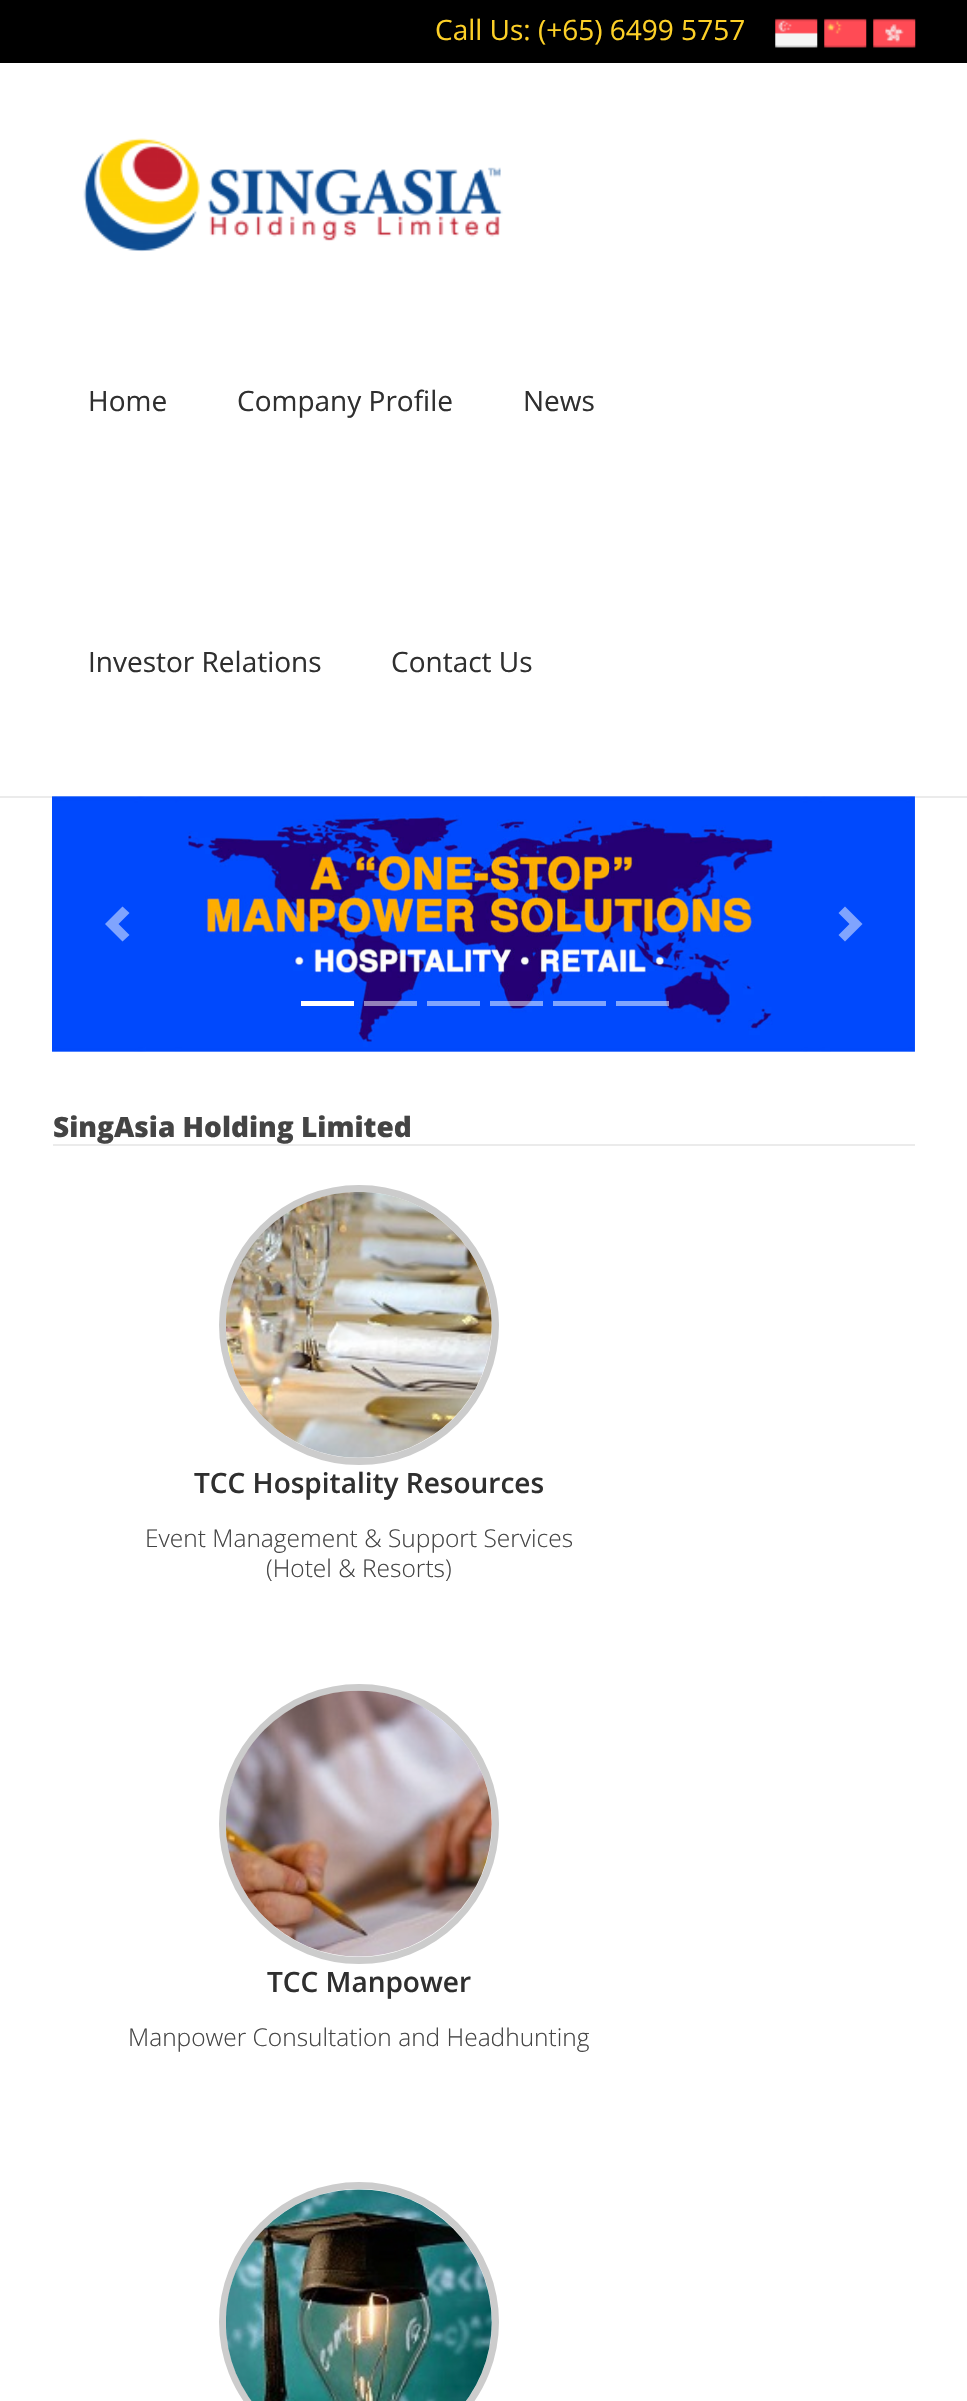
void draw(SkCanvas* canvas) {
	SkPaint fill;
	fill.setAntiAlias(true);
	auto makeFont = [&](const char* family, int weight, float size, bool italic = false) {
		SkFontStyle style(weight, SkFontStyle::kNormal_Width,
			italic ? SkFontStyle::kItalic_Slant : SkFontStyle::kUpright_Slant);
		SkFont result(fontMgr->matchFamilyStyle(family, style), size);
		result.setSubpixel(true);
		return result;
	};
	auto text = [&](const char* s, float x, float y, const SkFont& font) {
		canvas->drawString(s, x, y, font, fill);
	};
	auto box = [&](float l, float t, float r, float b) {
		canvas->drawRect(SkRect::MakeLTRB(l, t, r, b), fill);
	};
	auto picture = [&](const char* path, float l, float t, float r, float b) {
		auto image = SkImages::DeferredFromEncodedData(SkData::MakeFromFileName(path));
		canvas->drawImageRect(image, SkRect::MakeLTRB(l, t, r, b), SkSamplingOptions());
	};
	canvas->clear(0xFFFFFFFF);
	fill.setColor(0xFFEBEBEB);
	canvas->drawPath(SkPathBuilder().moveTo(0, 796).lineTo(0, 798).lineTo(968, 798).lineTo(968, 2).lineTo(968, 796).close().detach(), fill);
	fill.setColor(0xFF000000);
	box(0, 0, 967, 63);
	picture("image0.png", 775, 18, 818, 48);
	picture("image1.png", 824, 18, 867, 48);
	picture("image2.png", 873, 18, 916, 48);
	picture("image3.png", 83, 138, 503, 252);
	picture("image4.png", 52, 796, 915, 1052);
	fill.setColor(0xFF80A4FE);
	canvas->drawPath(SkPathBuilder().moveTo(122.5f, 906.5f).lineTo(105, 924).lineTo(122.5f, 941.5f).lineTo(129.5f, 935).lineTo(118.5f, 924).lineTo(129.5f, 913).close().detach(), fill);
	canvas->drawPath(SkPathBuilder().moveTo(845, 906.5f).lineTo(838.5f, 913).lineTo(849.5f, 924).lineTo(838.5f, 935).lineTo(845, 941.5f).lineTo(862.5f, 924).close().detach(), fill);
	fill.setColor(0xFFFFFFFF);
	box(301, 1001, 354, 1006);
	fill.setColor(0x80FFFFFF);
	box(364, 1001, 417, 1006);
	fill.setColor(0xFF80A4FE);
	box(427, 1001, 480, 1006);
	fill.setColor(0x80FFFFFF);
	box(490, 1001, 543, 1006);
	fill.setColor(0xFF80A4FE);
	box(553, 1001, 606, 1006);
	fill.setColor(0x80FFFFFF);
	box(616, 1001, 669, 1006);
	fill.setColor(0xFFEBEBEB);
	box(53, 1144, 915, 1146);
	fill.setStyle(SkPaint::kStroke_Style);
	fill.setStrokeWidth(7);
	fill.setColor(0xFFCCCCCC);
	canvas->drawCircle(359, 1325, 136.5f, fill);
	picture("image5.png", 226, 1192, 492, 1458);
	canvas->drawCircle(359, 1824, 136.5f, fill);
	picture("image6.png", 226, 1690, 492, 1957);
	canvas->drawCircle(359, 2322, 136.5f, fill);
	picture("image7.png", 226, 2189, 492, 2401);
	auto font1 = makeFont("Open Sans", 400, 28);
	fill.setStyle(SkPaint::kFill_Style);
	fill.setColor(0xFFFDD027);
	text("Call Us: (+65) 6499 5757", 435, 40, font1);
	fill.setColor(0xFF2F2F2F);
	text("Home", 88, 411, font1);
	text("Company Profile", 237, 411, font1);
	text("News", 523, 411, font1);
	text("Investor Relations", 88, 672, font1);
	text("Contact Us", 391, 672, font1);
	auto font2 = makeFont("Open Sans", 800, 28);
	fill.setColor(0xFF444444);
	text("SingAsia Holding Limited", 53, 1137, font2);
	auto font3 = makeFont("Open Sans", 600, 28);
	fill.setColor(0xFF2F2F2F);
	text("TCC Hospitality Resources", 194, 1493, font3);
	auto font4 = makeFont("Open Sans", 300, 24.5f);
	fill.setColor(0xFF444444);
	text("Event Management & Support Services", 145, 1547, font4);
	text("(Hotel & Resorts)", 266, 1577, font4);
	fill.setColor(0xFF2F2F2F);
	text("TCC Manpower", 267, 1992, font3);
	fill.setColor(0xFF444444);
	text("Manpower Consultation and Headhunting", 128, 2046, font4);
}
